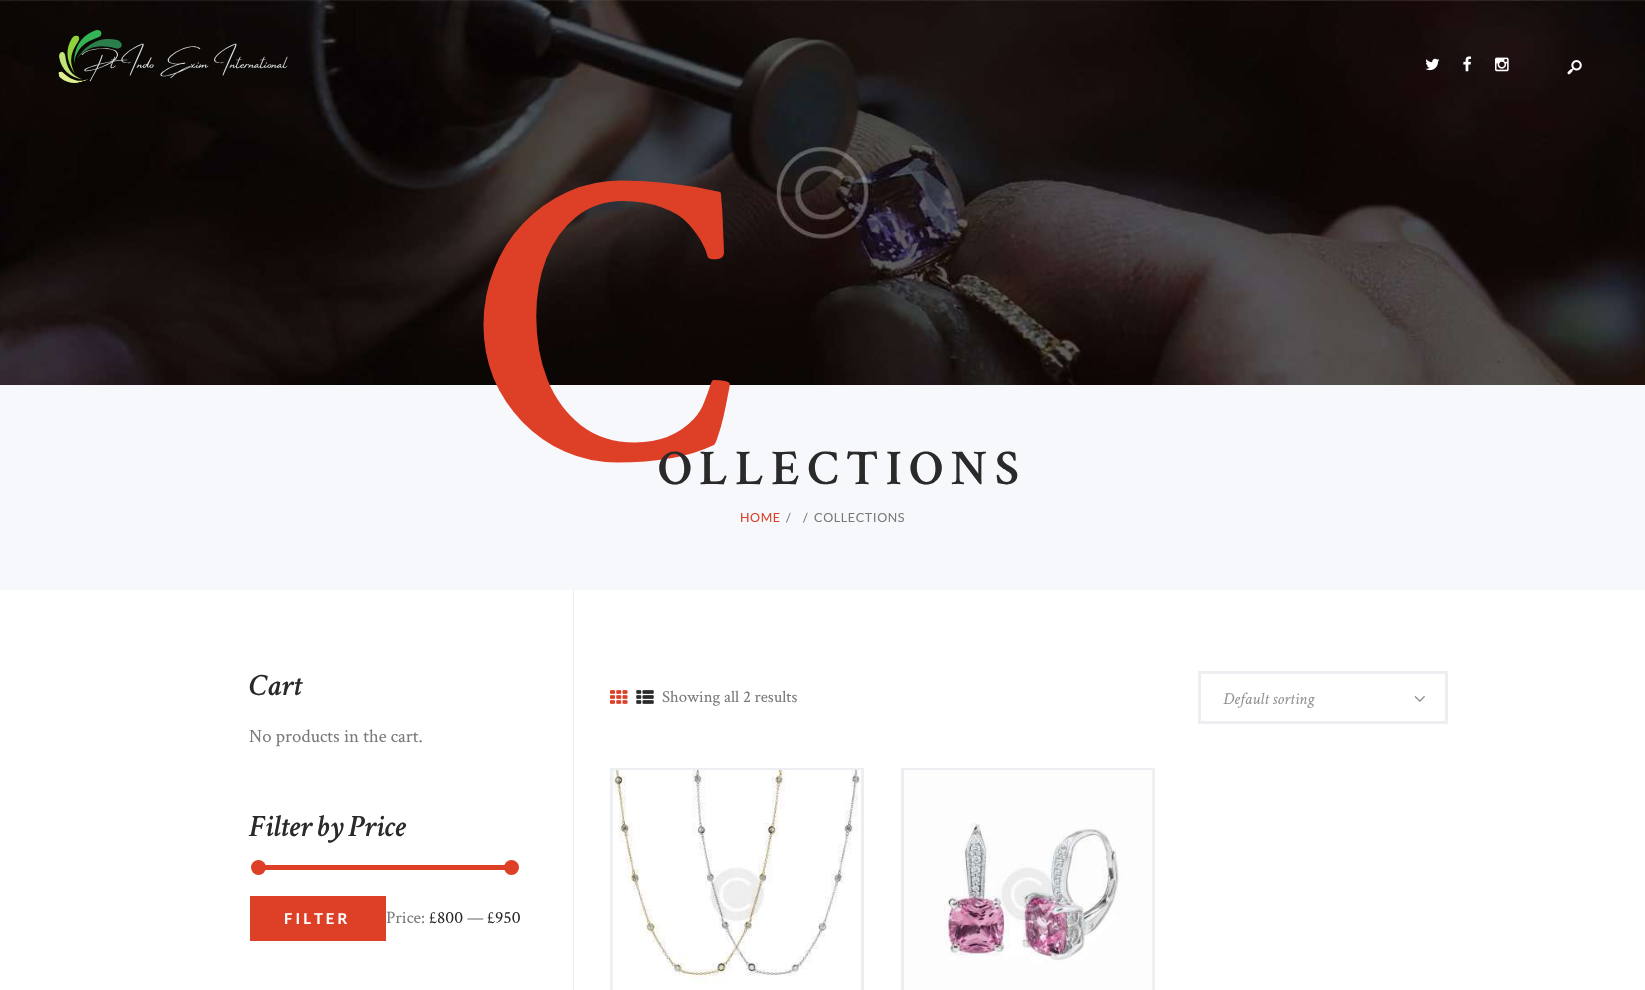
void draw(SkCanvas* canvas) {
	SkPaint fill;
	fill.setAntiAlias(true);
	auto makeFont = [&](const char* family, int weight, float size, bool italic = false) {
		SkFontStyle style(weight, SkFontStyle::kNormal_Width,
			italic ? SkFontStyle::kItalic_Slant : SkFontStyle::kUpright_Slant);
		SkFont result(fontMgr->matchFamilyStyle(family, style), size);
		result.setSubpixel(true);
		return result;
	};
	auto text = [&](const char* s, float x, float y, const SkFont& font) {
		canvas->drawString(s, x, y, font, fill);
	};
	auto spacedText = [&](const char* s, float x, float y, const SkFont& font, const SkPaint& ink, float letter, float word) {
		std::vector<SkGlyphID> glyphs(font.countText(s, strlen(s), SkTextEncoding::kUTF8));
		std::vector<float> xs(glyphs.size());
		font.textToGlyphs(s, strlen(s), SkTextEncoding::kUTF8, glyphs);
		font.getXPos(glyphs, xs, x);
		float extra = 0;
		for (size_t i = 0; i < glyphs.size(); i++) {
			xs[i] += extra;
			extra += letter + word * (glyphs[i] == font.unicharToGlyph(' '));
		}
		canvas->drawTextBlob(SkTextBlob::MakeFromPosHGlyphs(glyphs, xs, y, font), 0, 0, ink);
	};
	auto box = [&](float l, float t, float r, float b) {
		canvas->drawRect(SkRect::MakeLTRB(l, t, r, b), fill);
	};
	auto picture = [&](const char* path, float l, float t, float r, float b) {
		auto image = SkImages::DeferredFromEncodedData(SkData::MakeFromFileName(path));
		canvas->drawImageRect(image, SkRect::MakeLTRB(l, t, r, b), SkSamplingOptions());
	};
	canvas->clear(0xFFFFFFFF);
	picture("image0.png", 0, 0, 1645, 385);
	picture("image1.png", 58, 30, 288, 83);
	picture("image2.png", 1425, 58, 1440, 71);
	picture("image3.png", 1463, 56, 1472, 72);
	picture("image4.png", 1495, 57, 1509, 72);
	picture("image5.png", 1567, 60, 1582, 75);
	fill.setColor(0xFFF7F8FC);
	box(0, 385, 1645, 590);
	fill.setColor(0xFFDD4026);
	box(259, 865, 511, 870);
	canvas->drawCircle(258.5f, 867.5f, 7.5f, fill);
	canvas->drawCircle(511.5f, 867.5f, 7.5f, fill);
	box(250, 896, 386, 941);
	fill.setColor(0xFFEDEEF2);
	box(573, 590, 574, 990);
	picture("image6.png", 610, 690, 628, 704);
	picture("image7.png", 636, 690, 654, 704);
	fill.setStyle(SkPaint::kStroke_Style);
	fill.setStrokeWidth(3);
	canvas->drawRect(SkRect::MakeLTRB(1199.5f, 672.5f, 1446.5f, 722.5f), fill);
	picture("image8.png", 1414, 696, 1425, 702);
	canvas->drawRect(SkRect::MakeLTRB(611.5f, 769.5f, 862.5f, 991.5f), fill);
	picture("image9.png", 612, 770, 861, 990);
	canvas->drawRect(SkRect::MakeLTRB(902.5f, 769.5f, 1153.5f, 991.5f), fill);
	picture("image10.png", 904, 770, 1153, 990);
	auto font1 = makeFont("Crimson Text", 600, 429);
	fill.setStyle(SkPaint::kFill_Style);
	fill.setColor(0xFFDD4026);
	spacedText("C", 473, 460, font1, fill, 64, 0);
	auto font2 = makeFont("Crimson Text", 600, 50);
	fill.setColor(0xFF2A2A2A);
	spacedText("OLLECTIONS", 658, 484, font2, fill, 7.5f, 0);
	auto font3 = makeFont("Lato", 400, 12.5f);
	fill.setColor(0xFFDD4026);
	spacedText("HOME", 740, 522, font3, fill, 0.6f, 0);
	fill.setColor(0xFF7A7A7A);
	spacedText("/", 786, 522, font3, fill, 0.6f, 0);
	spacedText("/", 803, 522, font3, fill, 0.6f, 0);
	spacedText("COLLECTIONS", 814, 522, font3, fill, 0.6f, 0);
	auto font4 = makeFont("Crimson Text", 600, 31, true);
	fill.setColor(0xFF2A2A2A);
	text("Cart", 249, 695, font4);
	auto font5 = makeFont("Crimson Text", 400, 18.75f);
	fill.setColor(0xFF7A7A7A);
	text("No products in the cart.", 249, 742, font5);
	fill.setColor(0xFF2A2A2A);
	text("Filter by Price", 249, 836, font4);
	auto font6 = makeFont("Lato", 700, 15);
	fill.setColor(0xFFFFFFFF);
	spacedText("FILTER", 284, 924, font6, fill, 3, 0);
	auto font7 = makeFont("Crimson Text", 400, 17.5f);
	fill.setColor(0xFF7A7A7A);
	text("Price:", 386, 923, font7);
	fill.setColor(0xFF2A2A2A);
	text("£800", 429, 923, font7);
	fill.setColor(0xFF7A7A7A);
	text("—", 467, 923, font7);
	fill.setColor(0xFF2A2A2A);
	text("£950", 487, 923, font7);
	auto font8 = makeFont("Crimson Text", 400, 16.75f);
	fill.setColor(0xFF7A7A7A);
	text("Showing all 2 results", 662, 702, font8);
	auto font9 = makeFont("Crimson Text", 400, 16.75f, true);
	fill.setColor(0xFF919191);
	text("Default sorting", 1223, 704, font9);
}
